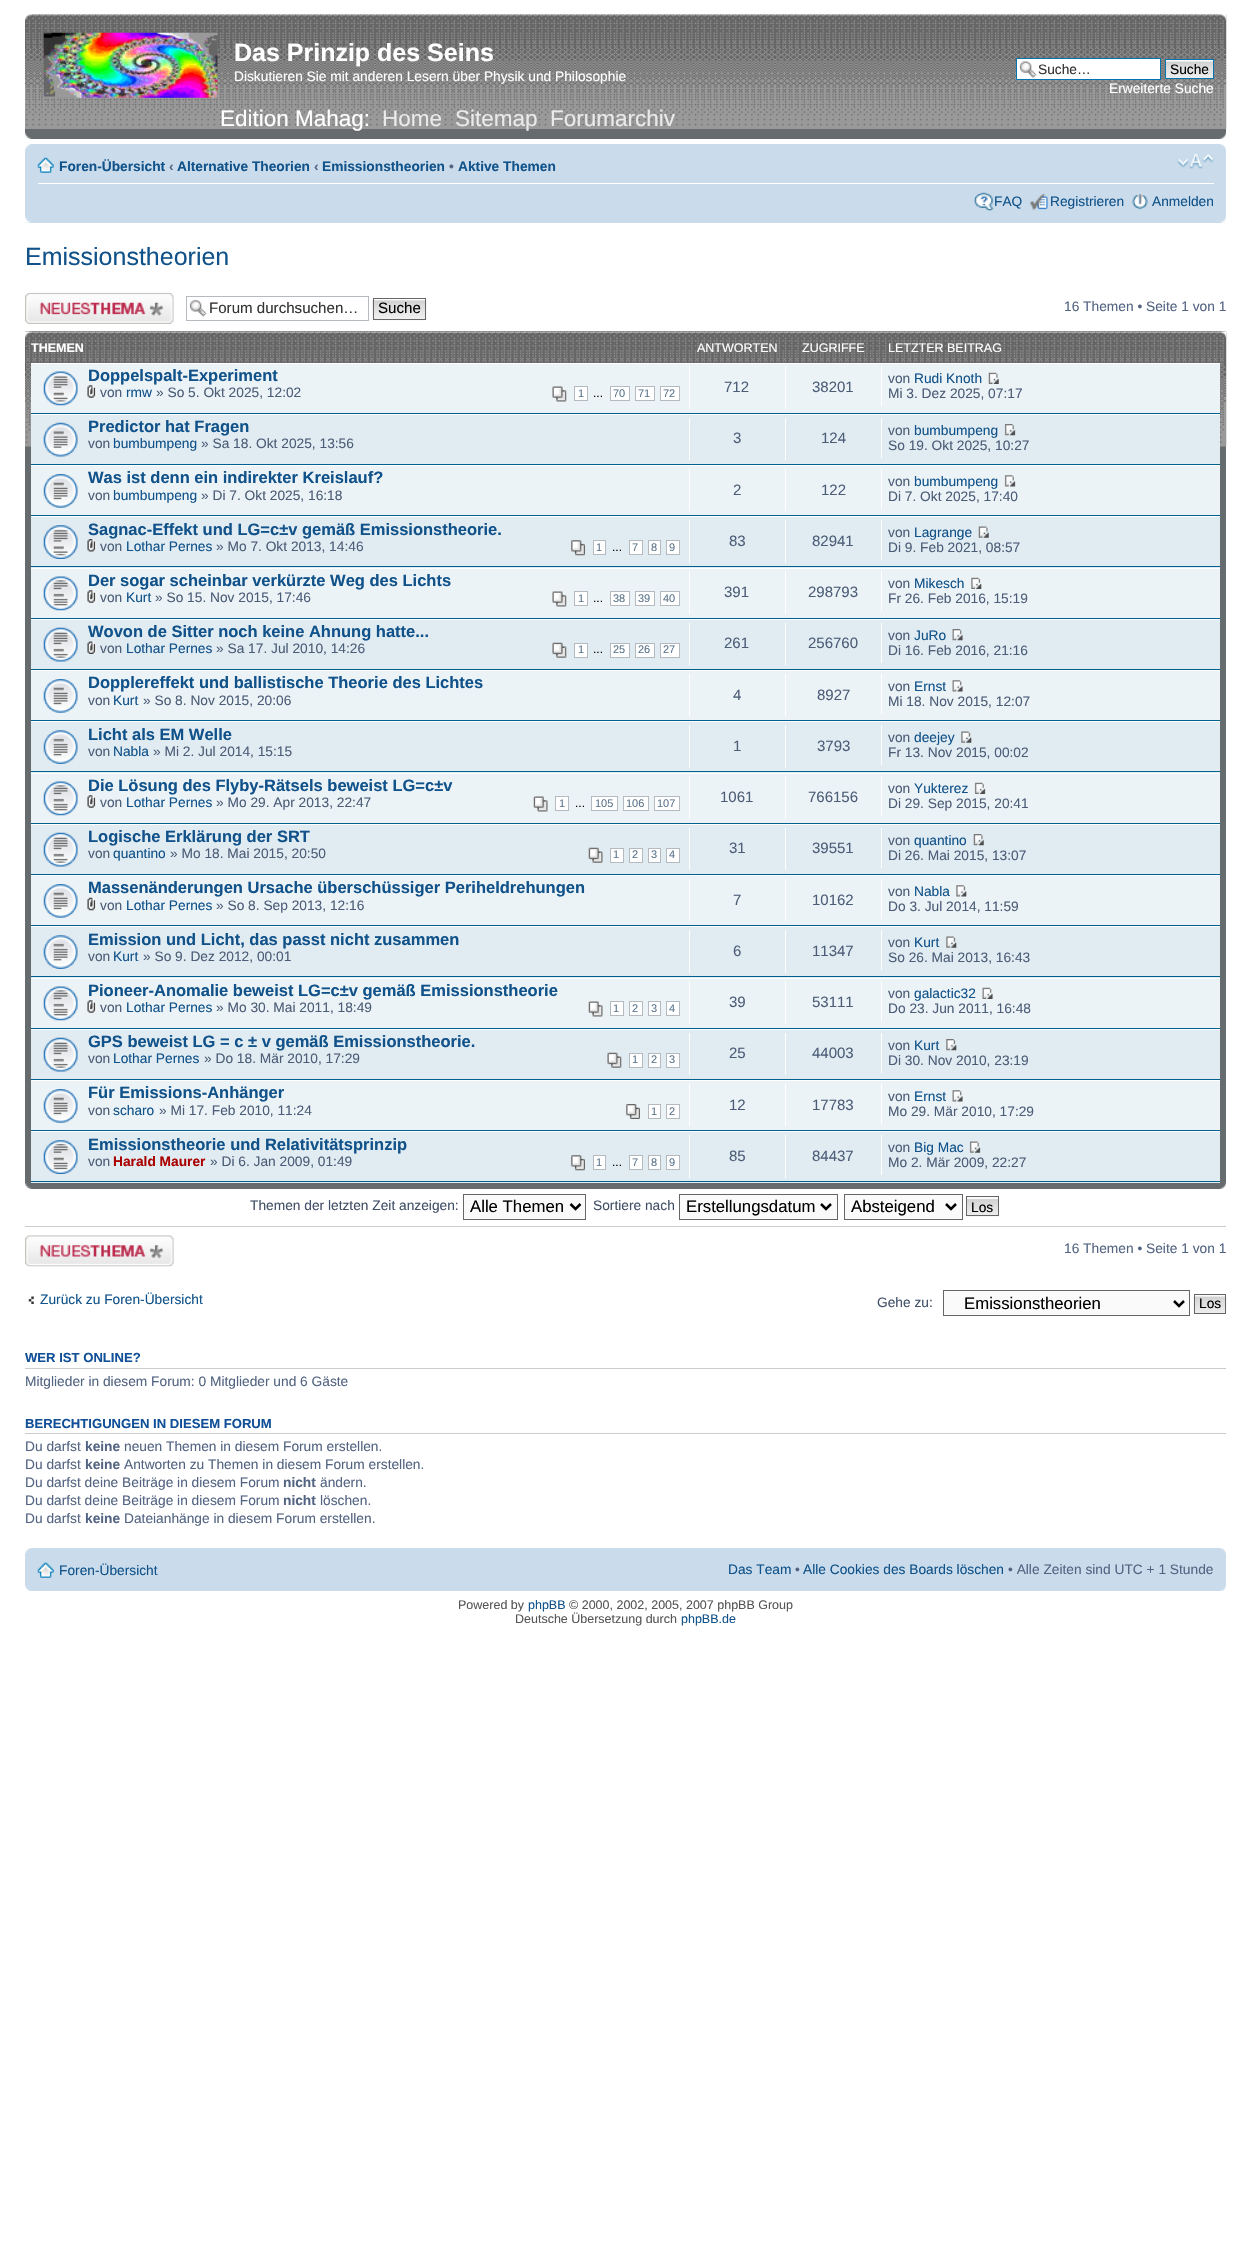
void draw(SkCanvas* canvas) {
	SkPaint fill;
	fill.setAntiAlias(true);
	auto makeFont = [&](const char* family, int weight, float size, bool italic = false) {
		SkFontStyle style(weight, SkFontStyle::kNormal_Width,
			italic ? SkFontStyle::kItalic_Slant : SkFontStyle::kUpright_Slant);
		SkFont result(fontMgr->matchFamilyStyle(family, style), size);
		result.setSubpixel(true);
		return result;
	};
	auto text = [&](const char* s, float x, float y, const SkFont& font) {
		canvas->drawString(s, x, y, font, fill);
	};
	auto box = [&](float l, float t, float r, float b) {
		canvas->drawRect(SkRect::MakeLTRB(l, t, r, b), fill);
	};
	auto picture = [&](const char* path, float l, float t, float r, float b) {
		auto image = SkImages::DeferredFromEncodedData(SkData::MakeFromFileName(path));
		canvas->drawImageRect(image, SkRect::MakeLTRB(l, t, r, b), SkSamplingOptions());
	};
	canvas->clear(0xFFFFFFFF);
	fill.setColor(0xFF666B6D);
	box(25, 129, 1226, 139);
	picture("image0.png", 25, 14, 1227, 129);
	picture("image1.png", 25, 14, 32, 21);
	picture("image2.png", 1220, 14, 1227, 21);
	picture("image3.png", 43, 32, 218, 98);
	fill.setColor(0xFFFFFFFF);
	box(1017, 59, 1160, 79);
	picture("image4.png", 1019, 61, 1037, 78);
	fill.setStyle(SkPaint::kStroke_Style);
	fill.setStrokeWidth(1);
	fill.setColor(0xFF0075B0);
	canvas->drawRect(SkRect::MakeLTRB(1016.5f, 58.5f, 1160.5f, 79.5f), fill);
	fill.setStyle(SkPaint::kFill_Style);
	fill.setColor(0xFFFAFAFA);
	box(1166, 60, 1213, 61);
	picture("image5.png", 1166, 61, 1213, 78);
	fill.setStyle(SkPaint::kStroke_Style);
	fill.setColor(0xFF0075B0);
	canvas->drawRect(SkRect::MakeLTRB(1165.5f, 59.5f, 1213.5f, 78.5f), fill);
	picture("image6.png", 25, 132, 32, 139);
	picture("image7.png", 1220, 132, 1226, 139);
	fill.setStyle(SkPaint::kFill_Style);
	fill.setColor(0xFFCADCEB);
	box(25, 144, 1226, 223);
	picture("image8.png", 25, 144, 32, 150);
	picture("image9.png", 1220, 144, 1226, 150);
	fill.setColor(0xFFFFFFFF);
	box(38, 183, 1214, 184);
	picture("image10.png", 37, 157, 54, 173);
	picture("image11.png", 1177, 154, 1214, 169);
	picture("image12.png", 974, 192, 994, 211);
	picture("image13.png", 1029, 193, 1048, 211);
	picture("image14.png", 1132, 194, 1148, 210);
	picture("image15.png", 25, 216, 31, 223);
	picture("image16.png", 1220, 216, 1226, 223);
	picture("image17.png", 25, 292, 174, 324);
	picture("image18.png", 189, 300, 207, 317);
	fill.setStyle(SkPaint::kStroke_Style);
	fill.setColor(0xFFB4BAC0);
	canvas->drawRect(SkRect::MakeLTRB(186.5f, 296.5f, 368.5f, 320.5f), fill);
	picture("image19.png", 372, 299, 427, 321);
	fill.setColor(0xFF666666);
	canvas->drawRect(SkRect::MakeLTRB(373.5f, 298.5f, 425.5f, 319.5f), fill);
	fill.setStyle(SkPaint::kFill_Style);
	fill.setColor(0xFF666B6D);
	box(25, 331, 1226, 1189);
	picture("image20.png", 25, 331, 1227, 447);
	picture("image21.png", 25, 331, 32, 338);
	picture("image22.png", 1220, 331, 1227, 338);
	fill.setColor(0xFFECF3F7);
	box(31, 364, 1220, 413);
	fill.setColor(0xFFFFFFFF);
	box(31, 363, 1220, 364);
	fill.setColor(0xFF00608F);
	box(31, 413, 1220, 414);
	picture("image23.png", 43, 371, 78, 406);
	picture("image24.png", 87, 385, 97, 398);
	picture("image25.png", 552, 386, 567, 402);
	fill.setColor(0xFFFFFFFF);
	canvas->drawRect(SkRect::MakeLTRB(574.5f, 386.5f, 587.5f, 400.5f), fill);
	fill.setStyle(SkPaint::kStroke_Style);
	fill.setColor(0xFFB4BAC0);
	canvas->drawRect(SkRect::MakeLTRB(574.5f, 386.5f, 587.5f, 400.5f), fill);
	fill.setStyle(SkPaint::kFill_Style);
	fill.setColor(0xFFFFFFFF);
	canvas->drawRect(SkRect::MakeLTRB(610.5f, 386.5f, 629.5f, 400.5f), fill);
	fill.setStyle(SkPaint::kStroke_Style);
	fill.setColor(0xFFB4BAC0);
	canvas->drawRect(SkRect::MakeLTRB(610.5f, 386.5f, 629.5f, 400.5f), fill);
	fill.setStyle(SkPaint::kFill_Style);
	fill.setColor(0xFFFFFFFF);
	canvas->drawRect(SkRect::MakeLTRB(635.5f, 386.5f, 654.5f, 400.5f), fill);
	fill.setStyle(SkPaint::kStroke_Style);
	fill.setColor(0xFFB4BAC0);
	canvas->drawRect(SkRect::MakeLTRB(635.5f, 386.5f, 654.5f, 400.5f), fill);
	fill.setStyle(SkPaint::kFill_Style);
	fill.setColor(0xFFFFFFFF);
	canvas->drawRect(SkRect::MakeLTRB(660.5f, 386.5f, 679.5f, 400.5f), fill);
	fill.setStyle(SkPaint::kStroke_Style);
	fill.setColor(0xFFB4BAC0);
	canvas->drawRect(SkRect::MakeLTRB(660.5f, 386.5f, 679.5f, 400.5f), fill);
	fill.setStyle(SkPaint::kFill_Style);
	fill.setColor(0xFFFFFFFF);
	box(689, 366, 690, 409);
	box(785, 366, 786, 409);
	box(881, 366, 882, 406);
	picture("image26.png", 988, 372, 999, 384);
	fill.setColor(0xFFE1EBF2);
	box(31, 415, 1220, 464);
	fill.setColor(0xFFFFFFFF);
	box(31, 414, 1220, 415);
	fill.setColor(0xFF00608F);
	box(31, 464, 1220, 465);
	picture("image27.png", 43, 422, 78, 457);
	fill.setColor(0xFFFFFFFF);
	box(689, 418, 690, 460);
	box(785, 418, 786, 460);
	box(881, 418, 882, 458);
	picture("image28.png", 1004, 424, 1016, 436);
	fill.setColor(0xFFECF3F7);
	box(31, 466, 1220, 515);
	fill.setColor(0xFFFFFFFF);
	box(31, 465, 1220, 466);
	fill.setColor(0xFF00608F);
	box(31, 515, 1220, 516);
	picture("image29.png", 43, 474, 78, 508);
	fill.setColor(0xFFFFFFFF);
	box(689, 469, 690, 511);
	box(785, 469, 786, 511);
	box(881, 469, 882, 509);
	picture("image30.png", 1004, 475, 1016, 487);
	fill.setColor(0xFFE1EBF2);
	box(31, 517, 1220, 568);
	fill.setColor(0xFFFFFFFF);
	box(31, 516, 1220, 517);
	fill.setColor(0xFF00608F);
	box(31, 566, 1220, 567);
	picture("image31.png", 43, 525, 78, 559);
	picture("image32.png", 87, 539, 97, 552);
	picture("image33.png", 571, 540, 585, 556);
	fill.setColor(0xFFFFFFFF);
	canvas->drawRect(SkRect::MakeLTRB(593.5f, 540.5f, 605.5f, 554.5f), fill);
	fill.setStyle(SkPaint::kStroke_Style);
	fill.setColor(0xFFB4BAC0);
	canvas->drawRect(SkRect::MakeLTRB(593.5f, 540.5f, 605.5f, 554.5f), fill);
	fill.setStyle(SkPaint::kFill_Style);
	fill.setColor(0xFFFFFFFF);
	canvas->drawRect(SkRect::MakeLTRB(629.5f, 540.5f, 642.5f, 554.5f), fill);
	fill.setStyle(SkPaint::kStroke_Style);
	fill.setColor(0xFFB4BAC0);
	canvas->drawRect(SkRect::MakeLTRB(629.5f, 540.5f, 642.5f, 554.5f), fill);
	fill.setStyle(SkPaint::kFill_Style);
	fill.setColor(0xFFFFFFFF);
	canvas->drawRect(SkRect::MakeLTRB(648.5f, 540.5f, 660.5f, 554.5f), fill);
	fill.setStyle(SkPaint::kStroke_Style);
	fill.setColor(0xFFB4BAC0);
	canvas->drawRect(SkRect::MakeLTRB(648.5f, 540.5f, 660.5f, 554.5f), fill);
	fill.setStyle(SkPaint::kFill_Style);
	fill.setColor(0xFFFFFFFF);
	canvas->drawRect(SkRect::MakeLTRB(666.5f, 540.5f, 679.5f, 554.5f), fill);
	fill.setStyle(SkPaint::kStroke_Style);
	fill.setColor(0xFFB4BAC0);
	canvas->drawRect(SkRect::MakeLTRB(666.5f, 540.5f, 679.5f, 554.5f), fill);
	fill.setStyle(SkPaint::kFill_Style);
	fill.setColor(0xFFFFFFFF);
	box(689, 520, 690, 563);
	box(785, 520, 786, 563);
	box(881, 520, 882, 560);
	picture("image34.png", 978, 526, 989, 538);
	fill.setColor(0xFFECF3F7);
	box(31, 569, 1220, 618);
	fill.setColor(0xFFFFFFFF);
	box(31, 568, 1220, 569);
	fill.setColor(0xFF00608F);
	box(31, 618, 1220, 619);
	picture("image35.png", 43, 576, 78, 611);
	picture("image24.png", 87, 590, 97, 603);
	picture("image25.png", 552, 591, 567, 607);
	fill.setColor(0xFFFFFFFF);
	canvas->drawRect(SkRect::MakeLTRB(574.5f, 591.5f, 587.5f, 605.5f), fill);
	fill.setStyle(SkPaint::kStroke_Style);
	fill.setColor(0xFFB4BAC0);
	canvas->drawRect(SkRect::MakeLTRB(574.5f, 591.5f, 587.5f, 605.5f), fill);
	fill.setStyle(SkPaint::kFill_Style);
	fill.setColor(0xFFFFFFFF);
	canvas->drawRect(SkRect::MakeLTRB(610.5f, 591.5f, 629.5f, 605.5f), fill);
	fill.setStyle(SkPaint::kStroke_Style);
	fill.setColor(0xFFB4BAC0);
	canvas->drawRect(SkRect::MakeLTRB(610.5f, 591.5f, 629.5f, 605.5f), fill);
	fill.setStyle(SkPaint::kFill_Style);
	fill.setColor(0xFFFFFFFF);
	canvas->drawRect(SkRect::MakeLTRB(635.5f, 591.5f, 654.5f, 605.5f), fill);
	fill.setStyle(SkPaint::kStroke_Style);
	fill.setColor(0xFFB4BAC0);
	canvas->drawRect(SkRect::MakeLTRB(635.5f, 591.5f, 654.5f, 605.5f), fill);
	fill.setStyle(SkPaint::kFill_Style);
	fill.setColor(0xFFFFFFFF);
	canvas->drawRect(SkRect::MakeLTRB(660.5f, 591.5f, 679.5f, 605.5f), fill);
	fill.setStyle(SkPaint::kStroke_Style);
	fill.setColor(0xFFB4BAC0);
	canvas->drawRect(SkRect::MakeLTRB(660.5f, 591.5f, 679.5f, 605.5f), fill);
	fill.setStyle(SkPaint::kFill_Style);
	fill.setColor(0xFFFFFFFF);
	box(689, 571, 690, 614);
	box(785, 571, 786, 614);
	box(881, 571, 882, 611);
	picture("image36.png", 971, 577, 982, 589);
	fill.setColor(0xFFE1EBF2);
	box(31, 620, 1220, 669);
	fill.setColor(0xFFFFFFFF);
	box(31, 619, 1220, 620);
	fill.setColor(0xFF00608F);
	box(31, 669, 1220, 670);
	picture("image37.png", 43, 627, 78, 662);
	picture("image38.png", 87, 641, 97, 654);
	picture("image39.png", 552, 642, 567, 658);
	fill.setColor(0xFFFFFFFF);
	canvas->drawRect(SkRect::MakeLTRB(574.5f, 643.5f, 587.5f, 657.5f), fill);
	fill.setStyle(SkPaint::kStroke_Style);
	fill.setColor(0xFFB4BAC0);
	canvas->drawRect(SkRect::MakeLTRB(574.5f, 643.5f, 587.5f, 657.5f), fill);
	fill.setStyle(SkPaint::kFill_Style);
	fill.setColor(0xFFFFFFFF);
	canvas->drawRect(SkRect::MakeLTRB(610.5f, 643.5f, 629.5f, 657.5f), fill);
	fill.setStyle(SkPaint::kStroke_Style);
	fill.setColor(0xFFB4BAC0);
	canvas->drawRect(SkRect::MakeLTRB(610.5f, 643.5f, 629.5f, 657.5f), fill);
	fill.setStyle(SkPaint::kFill_Style);
	fill.setColor(0xFFFFFFFF);
	canvas->drawRect(SkRect::MakeLTRB(635.5f, 643.5f, 654.5f, 657.5f), fill);
	fill.setStyle(SkPaint::kStroke_Style);
	fill.setColor(0xFFB4BAC0);
	canvas->drawRect(SkRect::MakeLTRB(635.5f, 643.5f, 654.5f, 657.5f), fill);
	fill.setStyle(SkPaint::kFill_Style);
	fill.setColor(0xFFFFFFFF);
	canvas->drawRect(SkRect::MakeLTRB(660.5f, 643.5f, 679.5f, 657.5f), fill);
	fill.setStyle(SkPaint::kStroke_Style);
	fill.setColor(0xFFB4BAC0);
	canvas->drawRect(SkRect::MakeLTRB(660.5f, 643.5f, 679.5f, 657.5f), fill);
	fill.setStyle(SkPaint::kFill_Style);
	fill.setColor(0xFFFFFFFF);
	box(689, 623, 690, 665);
	box(785, 623, 786, 665);
	box(881, 623, 882, 663);
	picture("image40.png", 952, 629, 963, 641);
	fill.setColor(0xFFECF3F7);
	box(31, 671, 1220, 720);
	fill.setColor(0xFFFFFFFF);
	box(31, 670, 1220, 671);
	fill.setColor(0xFF00608F);
	box(31, 720, 1220, 721);
	picture("image29.png", 43, 679, 78, 713);
	fill.setColor(0xFFFFFFFF);
	box(689, 674, 690, 716);
	box(785, 674, 786, 716);
	box(881, 674, 882, 714);
	picture("image41.png", 952, 680, 963, 692);
	fill.setColor(0xFFE1EBF2);
	box(31, 722, 1220, 773);
	fill.setColor(0xFFFFFFFF);
	box(31, 721, 1220, 722);
	fill.setColor(0xFF00608F);
	box(31, 771, 1220, 772);
	picture("image42.png", 43, 730, 78, 764);
	fill.setColor(0xFFFFFFFF);
	box(689, 725, 690, 768);
	box(785, 725, 786, 768);
	box(881, 725, 882, 765);
	picture("image43.png", 961, 731, 972, 743);
	fill.setColor(0xFFECF3F7);
	box(31, 774, 1220, 823);
	fill.setColor(0xFFFFFFFF);
	box(31, 773, 1220, 774);
	fill.setColor(0xFF00608F);
	box(31, 823, 1220, 824);
	picture("image44.png", 43, 781, 78, 816);
	picture("image24.png", 87, 795, 97, 808);
	picture("image45.png", 533, 796, 548, 812);
	fill.setColor(0xFFFFFFFF);
	canvas->drawRect(SkRect::MakeLTRB(555.5f, 796.5f, 568.5f, 810.5f), fill);
	fill.setStyle(SkPaint::kStroke_Style);
	fill.setColor(0xFFB4BAC0);
	canvas->drawRect(SkRect::MakeLTRB(555.5f, 796.5f, 568.5f, 810.5f), fill);
	fill.setStyle(SkPaint::kFill_Style);
	fill.setColor(0xFFFFFFFF);
	canvas->drawRect(SkRect::MakeLTRB(591.5f, 796.5f, 617.5f, 810.5f), fill);
	fill.setStyle(SkPaint::kStroke_Style);
	fill.setColor(0xFFB4BAC0);
	canvas->drawRect(SkRect::MakeLTRB(591.5f, 796.5f, 617.5f, 810.5f), fill);
	fill.setStyle(SkPaint::kFill_Style);
	fill.setColor(0xFFFFFFFF);
	canvas->drawRect(SkRect::MakeLTRB(623.5f, 796.5f, 648.5f, 810.5f), fill);
	fill.setStyle(SkPaint::kStroke_Style);
	fill.setColor(0xFFB4BAC0);
	canvas->drawRect(SkRect::MakeLTRB(623.5f, 796.5f, 648.5f, 810.5f), fill);
	fill.setStyle(SkPaint::kFill_Style);
	fill.setColor(0xFFFFFFFF);
	canvas->drawRect(SkRect::MakeLTRB(654.5f, 796.5f, 679.5f, 810.5f), fill);
	fill.setStyle(SkPaint::kStroke_Style);
	fill.setColor(0xFFB4BAC0);
	canvas->drawRect(SkRect::MakeLTRB(654.5f, 796.5f, 679.5f, 810.5f), fill);
	fill.setStyle(SkPaint::kFill_Style);
	fill.setColor(0xFFFFFFFF);
	box(689, 776, 690, 819);
	box(785, 776, 786, 819);
	box(881, 776, 882, 816);
	picture("image46.png", 974, 782, 986, 794);
	fill.setColor(0xFFE1EBF2);
	box(31, 825, 1220, 874);
	fill.setColor(0xFFFFFFFF);
	box(31, 824, 1220, 825);
	fill.setColor(0xFF00608F);
	box(31, 874, 1220, 875);
	picture("image37.png", 43, 832, 78, 867);
	picture("image47.png", 588, 847, 603, 863);
	fill.setColor(0xFFFFFFFF);
	canvas->drawRect(SkRect::MakeLTRB(610.5f, 848.5f, 623.5f, 862.5f), fill);
	fill.setStyle(SkPaint::kStroke_Style);
	fill.setColor(0xFFB4BAC0);
	canvas->drawRect(SkRect::MakeLTRB(610.5f, 848.5f, 623.5f, 862.5f), fill);
	fill.setStyle(SkPaint::kFill_Style);
	fill.setColor(0xFFFFFFFF);
	canvas->drawRect(SkRect::MakeLTRB(629.5f, 848.5f, 642.5f, 862.5f), fill);
	fill.setStyle(SkPaint::kStroke_Style);
	fill.setColor(0xFFB4BAC0);
	canvas->drawRect(SkRect::MakeLTRB(629.5f, 848.5f, 642.5f, 862.5f), fill);
	fill.setStyle(SkPaint::kFill_Style);
	fill.setColor(0xFFFFFFFF);
	canvas->drawRect(SkRect::MakeLTRB(648.5f, 848.5f, 660.5f, 862.5f), fill);
	fill.setStyle(SkPaint::kStroke_Style);
	fill.setColor(0xFFB4BAC0);
	canvas->drawRect(SkRect::MakeLTRB(648.5f, 848.5f, 660.5f, 862.5f), fill);
	fill.setStyle(SkPaint::kFill_Style);
	fill.setColor(0xFFFFFFFF);
	canvas->drawRect(SkRect::MakeLTRB(666.5f, 848.5f, 679.5f, 862.5f), fill);
	fill.setStyle(SkPaint::kStroke_Style);
	fill.setColor(0xFFB4BAC0);
	canvas->drawRect(SkRect::MakeLTRB(666.5f, 848.5f, 679.5f, 862.5f), fill);
	fill.setStyle(SkPaint::kFill_Style);
	fill.setColor(0xFFFFFFFF);
	box(689, 828, 690, 870);
	box(785, 828, 786, 870);
	box(881, 828, 882, 868);
	picture("image48.png", 973, 834, 984, 846);
	fill.setColor(0xFFECF3F7);
	box(31, 876, 1220, 925);
	fill.setColor(0xFFFFFFFF);
	box(31, 875, 1220, 876);
	fill.setColor(0xFF00608F);
	box(31, 925, 1220, 926);
	picture("image29.png", 43, 884, 78, 918);
	picture("image49.png", 87, 897, 97, 911);
	fill.setColor(0xFFFFFFFF);
	box(689, 879, 690, 921);
	box(785, 879, 786, 921);
	box(881, 879, 882, 919);
	picture("image50.png", 956, 885, 967, 897);
	fill.setColor(0xFFE1EBF2);
	box(31, 927, 1220, 978);
	fill.setColor(0xFFFFFFFF);
	box(31, 926, 1220, 927);
	fill.setColor(0xFF00608F);
	box(31, 976, 1220, 977);
	picture("image42.png", 43, 935, 78, 969);
	fill.setColor(0xFFFFFFFF);
	box(689, 930, 690, 973);
	box(785, 930, 786, 973);
	box(881, 930, 882, 970);
	picture("image43.png", 946, 936, 957, 948);
	fill.setColor(0xFFECF3F7);
	box(31, 979, 1220, 1028);
	fill.setColor(0xFFFFFFFF);
	box(31, 978, 1220, 979);
	fill.setColor(0xFF00608F);
	box(31, 1028, 1220, 1029);
	picture("image44.png", 43, 986, 78, 1021);
	picture("image24.png", 87, 1000, 97, 1013);
	picture("image45.png", 588, 1001, 603, 1017);
	fill.setColor(0xFFFFFFFF);
	canvas->drawRect(SkRect::MakeLTRB(610.5f, 1001.5f, 623.5f, 1015.5f), fill);
	fill.setStyle(SkPaint::kStroke_Style);
	fill.setColor(0xFFB4BAC0);
	canvas->drawRect(SkRect::MakeLTRB(610.5f, 1001.5f, 623.5f, 1015.5f), fill);
	fill.setStyle(SkPaint::kFill_Style);
	fill.setColor(0xFFFFFFFF);
	canvas->drawRect(SkRect::MakeLTRB(629.5f, 1001.5f, 642.5f, 1015.5f), fill);
	fill.setStyle(SkPaint::kStroke_Style);
	fill.setColor(0xFFB4BAC0);
	canvas->drawRect(SkRect::MakeLTRB(629.5f, 1001.5f, 642.5f, 1015.5f), fill);
	fill.setStyle(SkPaint::kFill_Style);
	fill.setColor(0xFFFFFFFF);
	canvas->drawRect(SkRect::MakeLTRB(648.5f, 1001.5f, 660.5f, 1015.5f), fill);
	fill.setStyle(SkPaint::kStroke_Style);
	fill.setColor(0xFFB4BAC0);
	canvas->drawRect(SkRect::MakeLTRB(648.5f, 1001.5f, 660.5f, 1015.5f), fill);
	fill.setStyle(SkPaint::kFill_Style);
	fill.setColor(0xFFFFFFFF);
	canvas->drawRect(SkRect::MakeLTRB(666.5f, 1001.5f, 679.5f, 1015.5f), fill);
	fill.setStyle(SkPaint::kStroke_Style);
	fill.setColor(0xFFB4BAC0);
	canvas->drawRect(SkRect::MakeLTRB(666.5f, 1001.5f, 679.5f, 1015.5f), fill);
	fill.setStyle(SkPaint::kFill_Style);
	fill.setColor(0xFFFFFFFF);
	box(689, 981, 690, 1024);
	box(785, 981, 786, 1024);
	box(881, 981, 882, 1021);
	picture("image51.png", 982, 987, 993, 999);
	fill.setColor(0xFFE1EBF2);
	box(31, 1030, 1220, 1079);
	fill.setColor(0xFFFFFFFF);
	box(31, 1029, 1220, 1030);
	fill.setColor(0xFF00608F);
	box(31, 1079, 1220, 1080);
	picture("image37.png", 43, 1037, 78, 1072);
	picture("image52.png", 607, 1052, 622, 1068);
	fill.setColor(0xFFFFFFFF);
	canvas->drawRect(SkRect::MakeLTRB(629.5f, 1053.5f, 642.5f, 1067.5f), fill);
	fill.setStyle(SkPaint::kStroke_Style);
	fill.setColor(0xFFB4BAC0);
	canvas->drawRect(SkRect::MakeLTRB(629.5f, 1053.5f, 642.5f, 1067.5f), fill);
	fill.setStyle(SkPaint::kFill_Style);
	fill.setColor(0xFFFFFFFF);
	canvas->drawRect(SkRect::MakeLTRB(648.5f, 1053.5f, 660.5f, 1067.5f), fill);
	fill.setStyle(SkPaint::kStroke_Style);
	fill.setColor(0xFFB4BAC0);
	canvas->drawRect(SkRect::MakeLTRB(648.5f, 1053.5f, 660.5f, 1067.5f), fill);
	fill.setStyle(SkPaint::kFill_Style);
	fill.setColor(0xFFFFFFFF);
	canvas->drawRect(SkRect::MakeLTRB(666.5f, 1053.5f, 679.5f, 1067.5f), fill);
	fill.setStyle(SkPaint::kStroke_Style);
	fill.setColor(0xFFB4BAC0);
	canvas->drawRect(SkRect::MakeLTRB(666.5f, 1053.5f, 679.5f, 1067.5f), fill);
	fill.setStyle(SkPaint::kFill_Style);
	fill.setColor(0xFFFFFFFF);
	box(689, 1033, 690, 1075);
	box(785, 1033, 786, 1075);
	box(881, 1033, 882, 1073);
	picture("image53.png", 946, 1039, 957, 1051);
	fill.setColor(0xFFECF3F7);
	box(31, 1081, 1220, 1130);
	fill.setColor(0xFFFFFFFF);
	box(31, 1080, 1220, 1081);
	fill.setColor(0xFF00608F);
	box(31, 1130, 1220, 1131);
	picture("image29.png", 43, 1089, 78, 1123);
	picture("image54.png", 626, 1104, 640, 1119);
	fill.setColor(0xFFFFFFFF);
	canvas->drawRect(SkRect::MakeLTRB(648.5f, 1104.5f, 660.5f, 1118.5f), fill);
	fill.setStyle(SkPaint::kStroke_Style);
	fill.setColor(0xFFB4BAC0);
	canvas->drawRect(SkRect::MakeLTRB(648.5f, 1104.5f, 660.5f, 1118.5f), fill);
	fill.setStyle(SkPaint::kFill_Style);
	fill.setColor(0xFFFFFFFF);
	canvas->drawRect(SkRect::MakeLTRB(666.5f, 1104.5f, 679.5f, 1118.5f), fill);
	fill.setStyle(SkPaint::kStroke_Style);
	fill.setColor(0xFFB4BAC0);
	canvas->drawRect(SkRect::MakeLTRB(666.5f, 1104.5f, 679.5f, 1118.5f), fill);
	fill.setStyle(SkPaint::kFill_Style);
	fill.setColor(0xFFFFFFFF);
	box(689, 1084, 690, 1126);
	box(785, 1084, 786, 1126);
	box(881, 1084, 882, 1124);
	picture("image41.png", 952, 1090, 963, 1102);
	fill.setColor(0xFFE1EBF2);
	box(31, 1132, 1220, 1183);
	fill.setColor(0xFFFFFFFF);
	box(31, 1131, 1220, 1132);
	fill.setColor(0xFF00608F);
	box(31, 1181, 1220, 1182);
	picture("image55.png", 43, 1140, 78, 1174);
	picture("image33.png", 571, 1155, 585, 1171);
	fill.setColor(0xFFFFFFFF);
	canvas->drawRect(SkRect::MakeLTRB(593.5f, 1155.5f, 605.5f, 1169.5f), fill);
	fill.setStyle(SkPaint::kStroke_Style);
	fill.setColor(0xFFB4BAC0);
	canvas->drawRect(SkRect::MakeLTRB(593.5f, 1155.5f, 605.5f, 1169.5f), fill);
	fill.setStyle(SkPaint::kFill_Style);
	fill.setColor(0xFFFFFFFF);
	canvas->drawRect(SkRect::MakeLTRB(629.5f, 1155.5f, 642.5f, 1169.5f), fill);
	fill.setStyle(SkPaint::kStroke_Style);
	fill.setColor(0xFFB4BAC0);
	canvas->drawRect(SkRect::MakeLTRB(629.5f, 1155.5f, 642.5f, 1169.5f), fill);
	fill.setStyle(SkPaint::kFill_Style);
	fill.setColor(0xFFFFFFFF);
	canvas->drawRect(SkRect::MakeLTRB(648.5f, 1155.5f, 660.5f, 1169.5f), fill);
	fill.setStyle(SkPaint::kStroke_Style);
	fill.setColor(0xFFB4BAC0);
	canvas->drawRect(SkRect::MakeLTRB(648.5f, 1155.5f, 660.5f, 1169.5f), fill);
	fill.setStyle(SkPaint::kFill_Style);
	fill.setColor(0xFFFFFFFF);
	canvas->drawRect(SkRect::MakeLTRB(666.5f, 1155.5f, 679.5f, 1169.5f), fill);
	fill.setStyle(SkPaint::kStroke_Style);
	fill.setColor(0xFFB4BAC0);
	canvas->drawRect(SkRect::MakeLTRB(666.5f, 1155.5f, 679.5f, 1169.5f), fill);
	fill.setStyle(SkPaint::kFill_Style);
	fill.setColor(0xFFFFFFFF);
	box(689, 1135, 690, 1178);
	box(785, 1135, 786, 1178);
	box(881, 1135, 882, 1175);
	picture("image56.png", 969, 1141, 981, 1153);
	picture("image57.png", 25, 1182, 32, 1189);
	picture("image7.png", 1220, 1182, 1226, 1189);
	fill.setColor(0xFFFAFAFA);
	canvas->drawRect(SkRect::MakeLTRB(463.5f, 1194.5f, 585.5f, 1219.5f), fill);
	fill.setStyle(SkPaint::kStroke_Style);
	fill.setColor(0xFF666666);
	canvas->drawRect(SkRect::MakeLTRB(463.5f, 1194.5f, 585.5f, 1219.5f), fill);
	fill.setStrokeWidth(2.5f);
	fill.setColor(0xFF000000);
	canvas->drawPath(SkPathBuilder().moveTo(570.5f, 1204).lineTo(575.5f, 1209).lineTo(580.5f, 1204).detach(), fill);
	fill.setStyle(SkPaint::kFill_Style);
	fill.setColor(0xFFFAFAFA);
	canvas->drawRect(SkRect::MakeLTRB(679.5f, 1194.5f, 837.5f, 1219.5f), fill);
	fill.setStyle(SkPaint::kStroke_Style);
	fill.setStrokeWidth(1);
	fill.setColor(0xFF666666);
	canvas->drawRect(SkRect::MakeLTRB(679.5f, 1194.5f, 837.5f, 1219.5f), fill);
	fill.setStrokeWidth(2.5f);
	fill.setColor(0xFF000000);
	canvas->drawPath(SkPathBuilder().moveTo(821, 1204).lineTo(826, 1209).lineTo(831, 1204).detach(), fill);
	fill.setStyle(SkPaint::kFill_Style);
	fill.setColor(0xFFFAFAFA);
	canvas->drawRect(SkRect::MakeLTRB(844.5f, 1194.5f, 962.5f, 1219.5f), fill);
	fill.setStyle(SkPaint::kStroke_Style);
	fill.setStrokeWidth(1);
	fill.setColor(0xFF666666);
	canvas->drawRect(SkRect::MakeLTRB(844.5f, 1194.5f, 962.5f, 1219.5f), fill);
	fill.setStrokeWidth(2.5f);
	fill.setColor(0xFF000000);
	canvas->drawPath(SkPathBuilder().moveTo(946, 1204).lineTo(951, 1209).lineTo(956, 1204).detach(), fill);
	fill.setStyle(SkPaint::kFill_Style);
	fill.setColor(0xFFFAFAFA);
	box(967, 1197, 998, 1199);
	picture("image58.png", 966, 1199, 999, 1217);
	fill.setStyle(SkPaint::kStroke_Style);
	fill.setStrokeWidth(1);
	fill.setColor(0xFF666666);
	canvas->drawRect(SkRect::MakeLTRB(966.5f, 1196.5f, 998.5f, 1215.5f), fill);
	fill.setStyle(SkPaint::kFill_Style);
	fill.setColor(0xFFCCCCCC);
	box(25, 1226, 1226, 1227);
	picture("image59.png", 25, 1235, 174, 1267);
	picture("image60.png", 28, 1296, 34, 1304);
	fill.setColor(0xFFFAFAFA);
	canvas->drawRect(SkRect::MakeLTRB(943.5f, 1290.5f, 1189.5f, 1315.5f), fill);
	fill.setStyle(SkPaint::kStroke_Style);
	fill.setColor(0xFF666666);
	canvas->drawRect(SkRect::MakeLTRB(943.5f, 1290.5f, 1189.5f, 1315.5f), fill);
	fill.setStrokeWidth(2.5f);
	fill.setColor(0xFF000000);
	canvas->drawPath(SkPathBuilder().moveTo(1174, 1301).lineTo(1179, 1306).lineTo(1184, 1301).detach(), fill);
	fill.setStyle(SkPaint::kFill_Style);
	fill.setColor(0xFFFAFAFA);
	box(1195, 1295, 1225, 1296);
	picture("image61.png", 1193, 1296, 1227, 1314);
	fill.setStyle(SkPaint::kStroke_Style);
	fill.setStrokeWidth(1);
	fill.setColor(0xFF666666);
	canvas->drawRect(SkRect::MakeLTRB(1194.5f, 1294.5f, 1225.5f, 1313.5f), fill);
	fill.setStyle(SkPaint::kFill_Style);
	fill.setColor(0xFFCCCCCC);
	box(25, 1368, 1226, 1369);
	box(25, 1433, 1226, 1434);
	fill.setColor(0xFFCADCEB);
	box(25, 1548, 1226, 1591);
	picture("image62.png", 25, 1548, 32, 1554);
	picture("image63.png", 1220, 1548, 1226, 1554);
	picture("image64.png", 37, 1562, 54, 1578);
	picture("image65.png", 25, 1585, 31, 1591);
	picture("image66.png", 1220, 1585, 1226, 1591);
	auto font1 = makeFont("Liberation Sans", 700, 25);
	fill.setColor(0xFFFFFFFF);
	text("Das Prinzip des Seins", 234, 61, font1);
	auto font2 = makeFont("Liberation Sans", 400, 13.75f);
	text("Diskutieren Sie mit anderen Lesern über Physik und Philosophie", 234, 81, font2);
	auto font3 = makeFont("Liberation Sans", 400, 22.5f);
	text("Edition Mahag:", 220, 126, font3);
	fill.setColor(0xFFEAEAEA);
	text("Home", 382, 126, font3);
	text("Sitemap", 455, 126, font3);
	text("Forumarchiv", 550, 126, font3);
	fill.setColor(0xFF333333);
	text("Suche…", 1038, 74, font2);
	fill.setColor(0xFF000000);
	text("Suche", 1170, 74, font2);
	fill.setColor(0xFFFFFFFF);
	text("Erweiterte Suche", 1109, 93, font2);
	auto font4 = makeFont("Liberation Sans", 700, 13.75f);
	fill.setColor(0xFF105289);
	text("Foren-Übersicht", 59, 171, font4);
	fill.setColor(0xFF536482);
	text("‹", 169, 171, font4);
	fill.setColor(0xFF105289);
	text("Alternative Theorien", 177, 171, font4);
	fill.setColor(0xFF536482);
	text("‹", 314, 171, font4);
	fill.setColor(0xFF105289);
	text("Emissionstheorien", 322, 171, font4);
	fill.setColor(0xFF536482);
	text("•", 449, 171, font4);
	fill.setColor(0xFF105289);
	text("Aktive Themen", 458, 171, font4);
	text("FAQ", 994, 206, font2);
	text("Registrieren", 1050, 206, font2);
	text("Anmelden", 1152, 206, font2);
	auto font5 = makeFont("Liberation Sans", 400, 25);
	text("Emissionstheorien", 25, 265, font5);
	auto font6 = makeFont("Liberation Sans", 400, 15.1f);
	fill.setColor(0xFF333333);
	text("Forum durchsuchen…", 209, 313, font6);
	fill.setColor(0xFF000000);
	text("Suche", 378, 313, font6);
	fill.setColor(0xFF536482);
	text("16 Themen • Seite 1 von 1", 1064, 311, font2);
	auto font7 = makeFont("Liberation Sans", 700, 12.5f);
	fill.setColor(0xFFFFFFFF);
	text("THEMEN", 31, 352, font7);
	auto font8 = makeFont("Liberation Sans", 400, 12.5f);
	text("ANTWORTEN", 697, 352, font8);
	text("ZUGRIFFE", 802, 352, font8);
	text("LETZTER BEITRAG", 888, 352, font8);
	auto font9 = makeFont("Liberation Sans", 700, 16.5f);
	fill.setColor(0xFF105289);
	text("Doppelspalt-Experiment", 88, 381, font9);
	fill.setColor(0xFF4C5D77);
	text("von", 100, 397, font2);
	fill.setColor(0xFF105289);
	text("rmw", 126, 397, font2);
	fill.setColor(0xFF4C5D77);
	text("» So 5. Okt 2025, 12:02", 156, 397, font2);
	auto font10 = makeFont("Liberation Sans", 400, 11);
	fill.setColor(0xFF5C758C);
	text("1", 578, 397, font10);
	auto font11 = makeFont("Liberation Sans", 400, 12);
	fill.setColor(0xFF000000);
	text("...", 593, 397, font11);
	fill.setColor(0xFF5C758C);
	text("70", 613, 397, font10);
	text("71", 638, 397, font10);
	text("72", 663, 397, font10);
	auto font12 = makeFont("Liberation Sans", 400, 15);
	fill.setColor(0xFF4C5D77);
	text("712", 724, 392, font12);
	text("38201", 812, 392, font12);
	text("von", 888, 383, font2);
	fill.setColor(0xFF105289);
	text("Rudi Knoth", 914, 383, font2);
	fill.setColor(0xFF4C5D77);
	text("Mi 3. Dez 2025, 07:17", 888, 398, font2);
	fill.setColor(0xFF105289);
	text("Predictor hat Fragen", 88, 432, font9);
	fill.setColor(0xFF4C5D77);
	text("von", 88, 448, font2);
	fill.setColor(0xFF105289);
	text("bumbumpeng", 113, 448, font2);
	fill.setColor(0xFF4C5D77);
	text("» Sa 18. Okt 2025, 13:56", 201, 448, font2);
	text("3", 733, 443, font12);
	text("124", 821, 443, font12);
	text("von", 888, 435, font2);
	fill.setColor(0xFF105289);
	text("bumbumpeng", 914, 435, font2);
	fill.setColor(0xFF4C5D77);
	text("So 19. Okt 2025, 10:27", 888, 450, font2);
	fill.setColor(0xFF105289);
	text("Was ist denn ein indirekter Kreislauf?", 88, 483, font9);
	fill.setColor(0xFF4C5D77);
	text("von", 88, 500, font2);
	fill.setColor(0xFF105289);
	text("bumbumpeng", 113, 500, font2);
	fill.setColor(0xFF4C5D77);
	text("» Di 7. Okt 2025, 16:18", 201, 500, font2);
	text("2", 733, 495, font12);
	text("122", 821, 495, font12);
	text("von", 888, 486, font2);
	fill.setColor(0xFF105289);
	text("bumbumpeng", 914, 486, font2);
	fill.setColor(0xFF4C5D77);
	text("Di 7. Okt 2025, 17:40", 888, 501, font2);
	fill.setColor(0xFF105289);
	text("Sagnac-Effekt und LG=c±v gemäß Emissionstheorie.", 88, 535, font9);
	fill.setColor(0xFF4C5D77);
	text("von", 100, 551, font2);
	fill.setColor(0xFF105289);
	text("Lothar Pernes", 126, 551, font2);
	fill.setColor(0xFF4C5D77);
	text("» Mo 7. Okt 2013, 14:46", 216, 551, font2);
	fill.setColor(0xFF5C758C);
	text("1", 596, 551, font10);
	fill.setColor(0xFF000000);
	text("...", 612, 551, font11);
	fill.setColor(0xFF5C758C);
	text("7", 632, 551, font10);
	text("8", 651, 551, font10);
	text("9", 669, 551, font10);
	fill.setColor(0xFF4C5D77);
	text("83", 729, 546, font12);
	text("82941", 812, 546, font12);
	text("von", 888, 537, font2);
	fill.setColor(0xFF105289);
	text("Lagrange", 914, 537, font2);
	fill.setColor(0xFF4C5D77);
	text("Di 9. Feb 2021, 08:57", 888, 552, font2);
	fill.setColor(0xFF105289);
	text("Der sogar scheinbar verkürzte Weg des Lichts", 88, 586, font9);
	fill.setColor(0xFF4C5D77);
	text("von", 100, 602, font2);
	fill.setColor(0xFF105289);
	text("Kurt", 126, 602, font2);
	fill.setColor(0xFF4C5D77);
	text("» So 15. Nov 2015, 17:46", 155, 602, font2);
	fill.setColor(0xFF5C758C);
	text("1", 578, 602, font10);
	fill.setColor(0xFF000000);
	text("...", 593, 602, font11);
	fill.setColor(0xFF5C758C);
	text("38", 613, 602, font10);
	text("39", 638, 602, font10);
	text("40", 663, 602, font10);
	fill.setColor(0xFF4C5D77);
	text("391", 724, 597, font12);
	text("298793", 808, 597, font12);
	text("von", 888, 588, font2);
	fill.setColor(0xFF105289);
	text("Mikesch", 914, 588, font2);
	fill.setColor(0xFF4C5D77);
	text("Fr 26. Feb 2016, 15:19", 888, 603, font2);
	fill.setColor(0xFF105289);
	text("Wovon de Sitter noch keine Ahnung hatte...", 88, 637, font9);
	fill.setColor(0xFF4C5D77);
	text("von", 100, 653, font2);
	fill.setColor(0xFF105289);
	text("Lothar Pernes", 126, 653, font2);
	fill.setColor(0xFF4C5D77);
	text("» Sa 17. Jul 2010, 14:26", 216, 653, font2);
	fill.setColor(0xFF5C758C);
	text("1", 578, 653, font10);
	fill.setColor(0xFF000000);
	text("...", 593, 653, font11);
	fill.setColor(0xFF5C758C);
	text("25", 613, 653, font10);
	text("26", 638, 653, font10);
	text("27", 663, 653, font10);
	fill.setColor(0xFF4C5D77);
	text("261", 724, 648, font12);
	text("256760", 808, 648, font12);
	text("von", 888, 640, font2);
	fill.setColor(0xFF105289);
	text("JuRo", 914, 640, font2);
	fill.setColor(0xFF4C5D77);
	text("Di 16. Feb 2016, 21:16", 888, 655, font2);
	fill.setColor(0xFF105289);
	text("Dopplereffekt und ballistische Theorie des Lichtes", 88, 688, font9);
	fill.setColor(0xFF4C5D77);
	text("von", 88, 705, font2);
	fill.setColor(0xFF105289);
	text("Kurt", 113, 705, font2);
	fill.setColor(0xFF4C5D77);
	text("» So 8. Nov 2015, 20:06", 143, 705, font2);
	text("4", 733, 700, font12);
	text("8927", 817, 700, font12);
	text("von", 888, 691, font2);
	fill.setColor(0xFF105289);
	text("Ernst", 914, 691, font2);
	fill.setColor(0xFF4C5D77);
	text("Mi 18. Nov 2015, 12:07", 888, 706, font2);
	fill.setColor(0xFF105289);
	text("Licht als EM Welle", 88, 740, font9);
	fill.setColor(0xFF4C5D77);
	text("von", 88, 756, font2);
	fill.setColor(0xFF105289);
	text("Nabla", 113, 756, font2);
	fill.setColor(0xFF4C5D77);
	text("» Mi 2. Jul 2014, 15:15", 153, 756, font2);
	text("1", 733, 751, font12);
	text("3793", 817, 751, font12);
	text("von", 888, 742, font2);
	fill.setColor(0xFF105289);
	text("deejey", 914, 742, font2);
	fill.setColor(0xFF4C5D77);
	text("Fr 13. Nov 2015, 00:02", 888, 757, font2);
	fill.setColor(0xFF105289);
	text("Die Lösung des Flyby-Rätsels beweist LG=c±v", 88, 791, font9);
	fill.setColor(0xFF4C5D77);
	text("von", 100, 807, font2);
	fill.setColor(0xFF105289);
	text("Lothar Pernes", 126, 807, font2);
	fill.setColor(0xFF4C5D77);
	text("» Mo 29. Apr 2013, 22:47", 216, 807, font2);
	fill.setColor(0xFF5C758C);
	text("1", 559, 807, font10);
	fill.setColor(0xFF000000);
	text("...", 575, 807, font11);
	fill.setColor(0xFF5C758C);
	text("105", 595, 807, font10);
	text("106", 626, 807, font10);
	text("107", 657, 807, font10);
	fill.setColor(0xFF4C5D77);
	text("1061", 720, 802, font12);
	text("766156", 808, 802, font12);
	text("von", 888, 793, font2);
	fill.setColor(0xFF105289);
	text("Yukterez", 914, 793, font2);
	fill.setColor(0xFF4C5D77);
	text("Di 29. Sep 2015, 20:41", 888, 808, font2);
	fill.setColor(0xFF105289);
	text("Logische Erklärung der SRT", 88, 842, font9);
	fill.setColor(0xFF4C5D77);
	text("von", 88, 858, font2);
	fill.setColor(0xFF105289);
	text("quantino", 113, 858, font2);
	fill.setColor(0xFF4C5D77);
	text("» Mo 18. Mai 2015, 20:50", 170, 858, font2);
	fill.setColor(0xFF5C758C);
	text("1", 613, 858, font10);
	text("2", 632, 858, font10);
	text("3", 651, 858, font10);
	text("4", 669, 858, font10);
	fill.setColor(0xFF4C5D77);
	text("31", 729, 853, font12);
	text("39551", 812, 853, font12);
	text("von", 888, 845, font2);
	fill.setColor(0xFF105289);
	text("quantino", 914, 845, font2);
	fill.setColor(0xFF4C5D77);
	text("Di 26. Mai 2015, 13:07", 888, 860, font2);
	fill.setColor(0xFF105289);
	text("Massenänderungen Ursache überschüssiger Periheldrehungen", 88, 893, font9);
	fill.setColor(0xFF4C5D77);
	text("von", 100, 910, font2);
	fill.setColor(0xFF105289);
	text("Lothar Pernes", 126, 910, font2);
	fill.setColor(0xFF4C5D77);
	text("» So 8. Sep 2013, 12:16", 216, 910, font2);
	text("7", 733, 905, font12);
	text("10162", 812, 905, font12);
	text("von", 888, 896, font2);
	fill.setColor(0xFF105289);
	text("Nabla", 914, 896, font2);
	fill.setColor(0xFF4C5D77);
	text("Do 3. Jul 2014, 11:59", 888, 911, font2);
	fill.setColor(0xFF105289);
	text("Emission und Licht, das passt nicht zusammen", 88, 945, font9);
	fill.setColor(0xFF4C5D77);
	text("von", 88, 961, font2);
	fill.setColor(0xFF105289);
	text("Kurt", 113, 961, font2);
	fill.setColor(0xFF4C5D77);
	text("» So 9. Dez 2012, 00:01", 143, 961, font2);
	text("6", 733, 956, font12);
	text("11347", 812, 956, font12);
	text("von", 888, 947, font2);
	fill.setColor(0xFF105289);
	text("Kurt", 914, 947, font2);
	fill.setColor(0xFF4C5D77);
	text("So 26. Mai 2013, 16:43", 888, 962, font2);
	fill.setColor(0xFF105289);
	text("Pioneer-Anomalie beweist LG=c±v gemäß Emissionstheorie", 88, 996, font9);
	fill.setColor(0xFF4C5D77);
	text("von", 100, 1012, font2);
	fill.setColor(0xFF105289);
	text("Lothar Pernes", 126, 1012, font2);
	fill.setColor(0xFF4C5D77);
	text("» Mo 30. Mai 2011, 18:49", 216, 1012, font2);
	fill.setColor(0xFF5C758C);
	text("1", 613, 1012, font10);
	text("2", 632, 1012, font10);
	text("3", 651, 1012, font10);
	text("4", 669, 1012, font10);
	fill.setColor(0xFF4C5D77);
	text("39", 729, 1007, font12);
	text("53111", 812, 1007, font12);
	text("von", 888, 998, font2);
	fill.setColor(0xFF105289);
	text("galactic32", 914, 998, font2);
	fill.setColor(0xFF4C5D77);
	text("Do 23. Jun 2011, 16:48", 888, 1013, font2);
	fill.setColor(0xFF105289);
	text("GPS beweist LG = c ± v gemäß Emissionstheorie.", 88, 1047, font9);
	fill.setColor(0xFF4C5D77);
	text("von", 88, 1063, font2);
	fill.setColor(0xFF105289);
	text("Lothar Pernes", 113, 1063, font2);
	fill.setColor(0xFF4C5D77);
	text("» Do 18. Mär 2010, 17:29", 204, 1063, font2);
	fill.setColor(0xFF5C758C);
	text("1", 632, 1063, font10);
	text("2", 651, 1063, font10);
	text("3", 669, 1063, font10);
	fill.setColor(0xFF4C5D77);
	text("25", 729, 1058, font12);
	text("44003", 812, 1058, font12);
	text("von", 888, 1050, font2);
	fill.setColor(0xFF105289);
	text("Kurt", 914, 1050, font2);
	fill.setColor(0xFF4C5D77);
	text("Di 30. Nov 2010, 23:19", 888, 1065, font2);
	fill.setColor(0xFF105289);
	text("Für Emissions-Anhänger", 88, 1098, font9);
	fill.setColor(0xFF4C5D77);
	text("von", 88, 1115, font2);
	fill.setColor(0xFF105289);
	text("scharo", 113, 1115, font2);
	fill.setColor(0xFF4C5D77);
	text("» Mi 17. Feb 2010, 11:24", 159, 1115, font2);
	fill.setColor(0xFF5C758C);
	text("1", 651, 1115, font10);
	text("2", 669, 1115, font10);
	fill.setColor(0xFF4C5D77);
	text("12", 729, 1110, font12);
	text("17783", 812, 1110, font12);
	text("von", 888, 1101, font2);
	fill.setColor(0xFF105289);
	text("Ernst", 914, 1101, font2);
	fill.setColor(0xFF4C5D77);
	text("Mo 29. Mär 2010, 17:29", 888, 1116, font2);
	fill.setColor(0xFF105289);
	text("Emissionstheorie und Relativitätsprinzip", 88, 1150, font9);
	fill.setColor(0xFF4C5D77);
	text("von", 88, 1166, font2);
	fill.setColor(0xFFAA0000);
	text("Harald Maurer", 113, 1166, font4);
	fill.setColor(0xFF4C5D77);
	text("» Di 6. Jan 2009, 01:49", 210, 1166, font2);
	fill.setColor(0xFF5C758C);
	text("1", 596, 1166, font10);
	fill.setColor(0xFF000000);
	text("...", 612, 1166, font11);
	fill.setColor(0xFF5C758C);
	text("7", 632, 1166, font10);
	text("8", 651, 1166, font10);
	text("9", 669, 1166, font10);
	fill.setColor(0xFF4C5D77);
	text("85", 729, 1161, font12);
	text("84437", 812, 1161, font12);
	text("von", 888, 1152, font2);
	fill.setColor(0xFF105289);
	text("Big Mac", 914, 1152, font2);
	fill.setColor(0xFF4C5D77);
	text("Mo 2. Mär 2009, 22:27", 888, 1167, font2);
	fill.setColor(0xFF425067);
	text("Themen der letzten Zeit anzeigen:", 250, 1210, font2);
	auto font13 = makeFont("Liberation Sans", 400, 16.75f);
	fill.setColor(0xFF000000);
	text("Alle Themen", 470, 1212, font13);
	fill.setColor(0xFF425067);
	text("Sortiere nach", 593, 1210, font2);
	fill.setColor(0xFF000000);
	text("Erstellungsdatum", 686, 1212, font13);
	text("Absteigend", 851, 1212, font13);
	text("Los", 971, 1212, font2);
	fill.setColor(0xFF536482);
	text("16 Themen • Seite 1 von 1", 1064, 1253, font2);
	fill.setColor(0xFF105289);
	text("Zurück zu Foren-Übersicht", 40, 1304, font2);
	fill.setColor(0xFF425067);
	text("Gehe zu:", 877, 1307, font2);
	fill.setColor(0xFF000000);
	text("Emissionstheorien", 964, 1309, font13);
	text("Los", 1199, 1308, font2);
	auto font14 = makeFont("Liberation Sans", 700, 13.1f);
	fill.setColor(0xFF115098);
	text("WER IST ONLINE?", 25, 1362, font14);
	fill.setColor(0xFF536482);
	text("Mitglieder in diesem Forum: 0 Mitglieder und 6 Gäste", 25, 1386, font2);
	fill.setColor(0xFF115098);
	text("BERECHTIGUNGEN IN DIESEM FORUM", 25, 1428, font14);
	fill.setColor(0xFF536482);
	text("Du darfst", 25, 1451, font2);
	text("keine", 85, 1451, font4);
	text("neuen Themen in diesem Forum erstellen.", 124, 1451, font2);
	text("Du darfst", 25, 1469, font2);
	text("keine", 85, 1469, font4);
	text("Antworten zu Themen in diesem Forum erstellen.", 124, 1469, font2);
	text("Du darfst deine Beiträge in diesem Forum", 25, 1487, font2);
	text("nicht", 283, 1487, font4);
	text("ändern.", 320, 1487, font2);
	text("Du darfst deine Beiträge in diesem Forum", 25, 1505, font2);
	text("nicht", 283, 1505, font4);
	text("löschen.", 320, 1505, font2);
	text("Du darfst", 25, 1523, font2);
	text("keine", 85, 1523, font4);
	text("Dateianhänge in diesem Forum erstellen.", 124, 1523, font2);
	fill.setColor(0xFF105289);
	text("Foren-Übersicht", 59, 1575, font2);
	text("Das Team", 728, 1574, font2);
	fill.setColor(0xFF536482);
	text("•", 795, 1574, font2);
	fill.setColor(0xFF105289);
	text("Alle Cookies des Boards löschen", 803, 1574, font2);
	fill.setColor(0xFF536482);
	text("• Alle Zeiten sind UTC + 1 Stunde", 1008, 1574, font2);
	fill.setColor(0xFF555555);
	text("Powered by", 458, 1609, font8);
	fill.setColor(0xFF105289);
	text("phpBB", 528, 1609, font8);
	fill.setColor(0xFF555555);
	text("© 2000, 2002, 2005, 2007 phpBB Group", 569, 1609, font8);
	text("Deutsche Übersetzung durch", 515, 1623, font8);
	fill.setColor(0xFF105289);
	text("phpBB.de", 681, 1623, font8);
}
